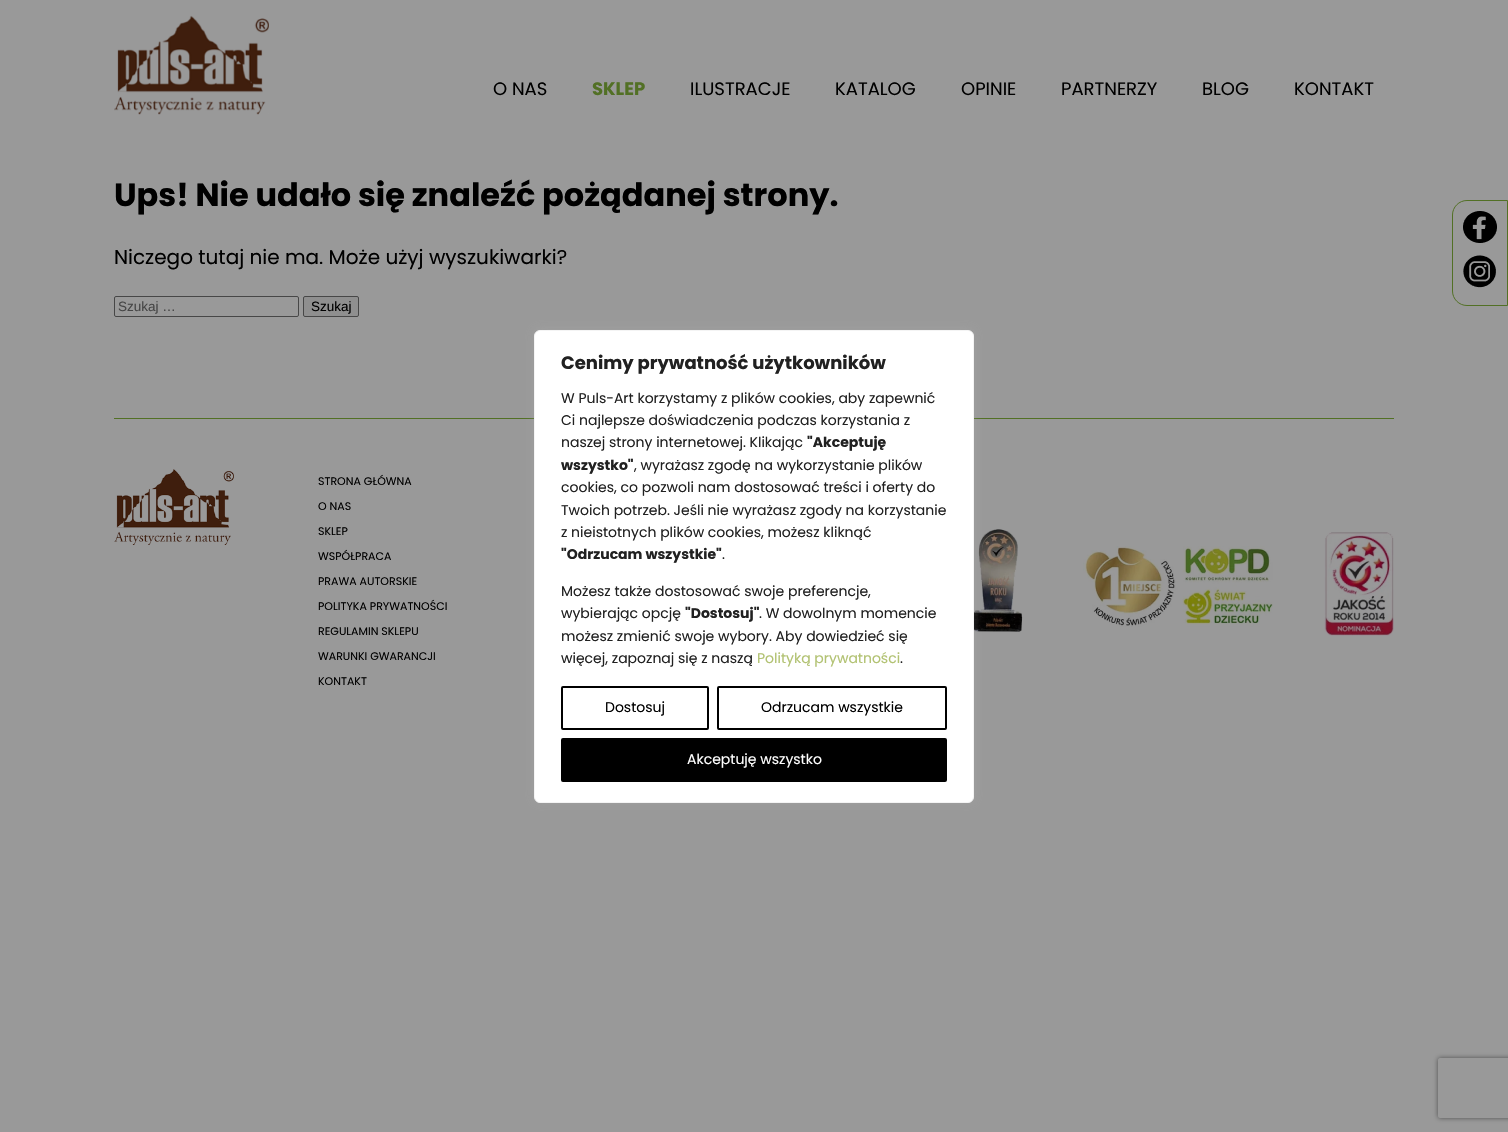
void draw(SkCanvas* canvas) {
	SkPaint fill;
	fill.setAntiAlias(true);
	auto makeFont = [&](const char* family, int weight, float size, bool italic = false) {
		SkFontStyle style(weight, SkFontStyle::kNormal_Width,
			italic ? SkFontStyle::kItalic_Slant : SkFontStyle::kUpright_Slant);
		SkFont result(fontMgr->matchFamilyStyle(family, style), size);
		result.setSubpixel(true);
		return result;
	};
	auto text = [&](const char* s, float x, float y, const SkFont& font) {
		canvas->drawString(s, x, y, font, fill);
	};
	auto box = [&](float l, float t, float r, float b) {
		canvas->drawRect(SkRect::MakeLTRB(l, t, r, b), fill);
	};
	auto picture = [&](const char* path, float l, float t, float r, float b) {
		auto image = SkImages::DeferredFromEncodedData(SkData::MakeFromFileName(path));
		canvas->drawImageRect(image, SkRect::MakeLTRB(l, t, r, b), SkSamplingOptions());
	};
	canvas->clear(0xFF999999);
	picture("image0.png", 114, 15, 269, 115);
	fill.setStyle(SkPaint::kStroke_Style);
	fill.setStrokeWidth(1);
	fill.setColor(0xFF474747);
	canvas->drawRoundRect(SkRect::MakeLTRB(114.5f, 296.5f, 298.5f, 316.5f), 1.5f, 1.5f, fill);
	fill.setStyle(SkPaint::kFill_Style);
	fill.setColor(0xFF8F8F8F);
	canvas->drawRoundRect(SkRect::MakeLTRB(303.5f, 296.5f, 358.5f, 316.5f), 1.5f, 1.5f, fill);
	fill.setStyle(SkPaint::kStroke_Style);
	fill.setColor(0xFF474747);
	canvas->drawRoundRect(SkRect::MakeLTRB(303.5f, 296.5f, 358.5f, 316.5f), 1.5f, 1.5f, fill);
	fill.setColor(0xFF527025);
	canvas->drawPath(SkPathBuilder().moveTo(1467, 200.5f).lineTo(1507.5f, 200.5f).lineTo(1507.5f, 305.5f).lineTo(1467, 305.5f).cubicTo(1459, 305.5f, 1452.5f, 299, 1452.5f, 291).lineTo(1452.5f, 215).cubicTo(1452.5f, 207, 1459, 200.5f, 1467, 200.5f).close().detach(), fill);
	picture("image1.png", 1463, 211, 1497, 243);
	picture("image2.png", 1463, 255, 1496, 288);
	fill.setStyle(SkPaint::kFill_Style);
	box(114, 418, 1394, 419);
	picture("image3.png", 114, 469, 234, 545);
	picture("image4.png", 974, 529, 1023, 632);
	picture("image5.png", 1083, 546, 1273, 627);
	picture("image6.png", 1324, 532, 1394, 636);
	fill.setColor(0x4DACABAB);
	fill.setMaskFilter(SkMaskFilter::MakeBlur(kNormal_SkBlurStyle, 5));
	canvas->drawRoundRect(SkRect::MakeLTRB(534, 329, 974, 802), 6, 6, fill);
	fill.setMaskFilter(nullptr);
	fill.setColor(0xFFFFFFFF);
	canvas->drawRoundRect(SkRect::MakeLTRB(534.5f, 330.5f, 973.5f, 802.5f), 5.5f, 5.5f, fill);
	fill.setStyle(SkPaint::kStroke_Style);
	fill.setColor(0xFFF4F4F4);
	canvas->drawRoundRect(SkRect::MakeLTRB(534.5f, 330.5f, 973.5f, 802.5f), 5.5f, 5.5f, fill);
	fill.setStrokeWidth(2);
	fill.setColor(0xFF000000);
	canvas->drawRoundRect(SkRect::MakeLTRB(562, 687, 708, 729), 1, 1, fill);
	canvas->drawRoundRect(SkRect::MakeLTRB(718, 687, 946, 729), 1, 1, fill);
	fill.setStyle(SkPaint::kFill_Style);
	canvas->drawRoundRect(SkRect::MakeLTRB(562, 739, 946, 781), 1, 1, fill);
	fill.setStyle(SkPaint::kStroke_Style);
	canvas->drawRoundRect(SkRect::MakeLTRB(562, 739, 946, 781), 1, 1, fill);
	canvas->save();
	canvas->clipPath(SkPathBuilder(SkPathFillType::kEvenOdd).moveTo(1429, 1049).lineTo(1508, 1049).lineTo(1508, 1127).lineTo(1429, 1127).close().moveTo(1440, 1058).lineTo(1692, 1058).cubicTo(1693, 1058, 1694, 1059, 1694, 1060).lineTo(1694, 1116).cubicTo(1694, 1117, 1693, 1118, 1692, 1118).lineTo(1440, 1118).cubicTo(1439, 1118, 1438, 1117, 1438, 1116).lineTo(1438, 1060).cubicTo(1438, 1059, 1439, 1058, 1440, 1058).close().detach(), true);
	fill.setStyle(SkPaint::kFill_Style);
	fill.setColor(0xFF4D4D4D);
	fill.setMaskFilter(SkMaskFilter::MakeBlur(kNormal_SkBlurStyle, 2.5f));
	canvas->drawRoundRect(SkRect::MakeLTRB(1438, 1058, 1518, 1118), 2, 2, fill);
	fill.setMaskFilter(nullptr);
	canvas->restore();
	auto font1 = makeFont("Poppins", 400, 18);
	fill.setColor(0xFF000000);
	text("O NAS", 493, 95, font1);
	auto font2 = makeFont("Poppins", 700, 18);
	fill.setColor(0xFF527025);
	text("SKLEP", 592, 95, font2);
	fill.setColor(0xFF000000);
	text("ILUSTRACJE", 690, 95, font1);
	text("KATALOG", 835, 95, font1);
	text("OPINIE", 961, 95, font1);
	text("PARTNERZY", 1061, 95, font1);
	text("BLOG", 1202, 95, font1);
	text("KONTAKT", 1294, 95, font1);
	auto font3 = makeFont("Poppins", 700, 32);
	text("Ups! Nie udało się znaleźć pożądanej strony.", 114, 206, font3);
	auto font4 = makeFont("Poppins", 400, 20);
	text("Niczego tutaj nie ma. Może użyj wyszukiwarki?", 114, 264, font4);
	auto font5 = makeFont("Liberation Sans", 400, 13.5f);
	fill.setColor(0xFF464646);
	text("Szukaj …", 118, 311, font5);
	fill.setColor(0xFF000000);
	text("Szukaj", 311, 311, font5);
	auto font6 = makeFont("Poppins", 400, 11);
	text("STRONA GŁÓWNA", 318, 485, font6);
	text("O NAS", 318, 510, font6);
	text("SKLEP", 318, 535, font6);
	text("WSPÓŁPRACA", 318, 560, font6);
	text("PRAWA AUTORSKIE", 318, 585, font6);
	text("POLITYKA PRYWATNOŚCI", 318, 610, font6);
	text("REGULAMIN SKLEPU", 318, 635, font6);
	text("WARUNKI GWARANCJI", 318, 660, font6);
	text("KONTAKT", 318, 685, font6);
	fill.setColor(0xFF212121);
	text("Cenimy prywatność użytkowników", 561, 369, font2);
	auto font7 = makeFont("Poppins", 400, 14);
	text("W Puls-Art korzystamy z plików cookies, aby zapewnić", 561, 403, font7);
	text("Ci najlepsze doświadczenia podczas korzystania z", 561, 425, font7);
	text("naszej strony internetowej. Klikając", 561, 447, font7);
	auto font8 = makeFont("Poppins", 700, 14);
	text("\"Akceptuję", 807, 447, font8);
	text("wszystko\"", 561, 470, font8);
	text(", wyrażasz zgodę na wykorzystanie plików", 634, 470, font7);
	text("cookies, co pozwoli nam dostosować treści i oferty do", 561, 492, font7);
	text("Twoich potrzeb. Jeśli nie wyrażasz zgody na korzystanie", 561, 515, font7);
	text("z nieistotnych plików cookies, możesz kliknąć", 561, 537, font7);
	text("\"Odrzucam wszystkie\"", 561, 559, font8);
	text(".", 722, 559, font7);
	text("Możesz także dostosować swoje preferencje,", 561, 596, font7);
	text("wybierając opcję", 561, 618, font7);
	text("\"Dostosuj\"", 685, 618, font8);
	text(". W dowolnym momencie", 759, 618, font7);
	text("możesz zmienić swoje wybory. Aby dowiedzieć się", 561, 641, font7);
	text("więcej, zapoznaj się z naszą", 561, 663, font7);
	fill.setColor(0xFFB2C272);
	text("Polityką prywatności", 757, 663, font7);
	fill.setColor(0xFF212121);
	text(".", 900, 663, font7);
	fill.setColor(0xFF000000);
	text("Dostosuj", 605, 712, font7);
	text("Odrzucam wszystkie", 761, 712, font7);
	fill.setColor(0xFFFFFFFF);
	text("Akceptuję wszystko", 687, 764, font7);
}
